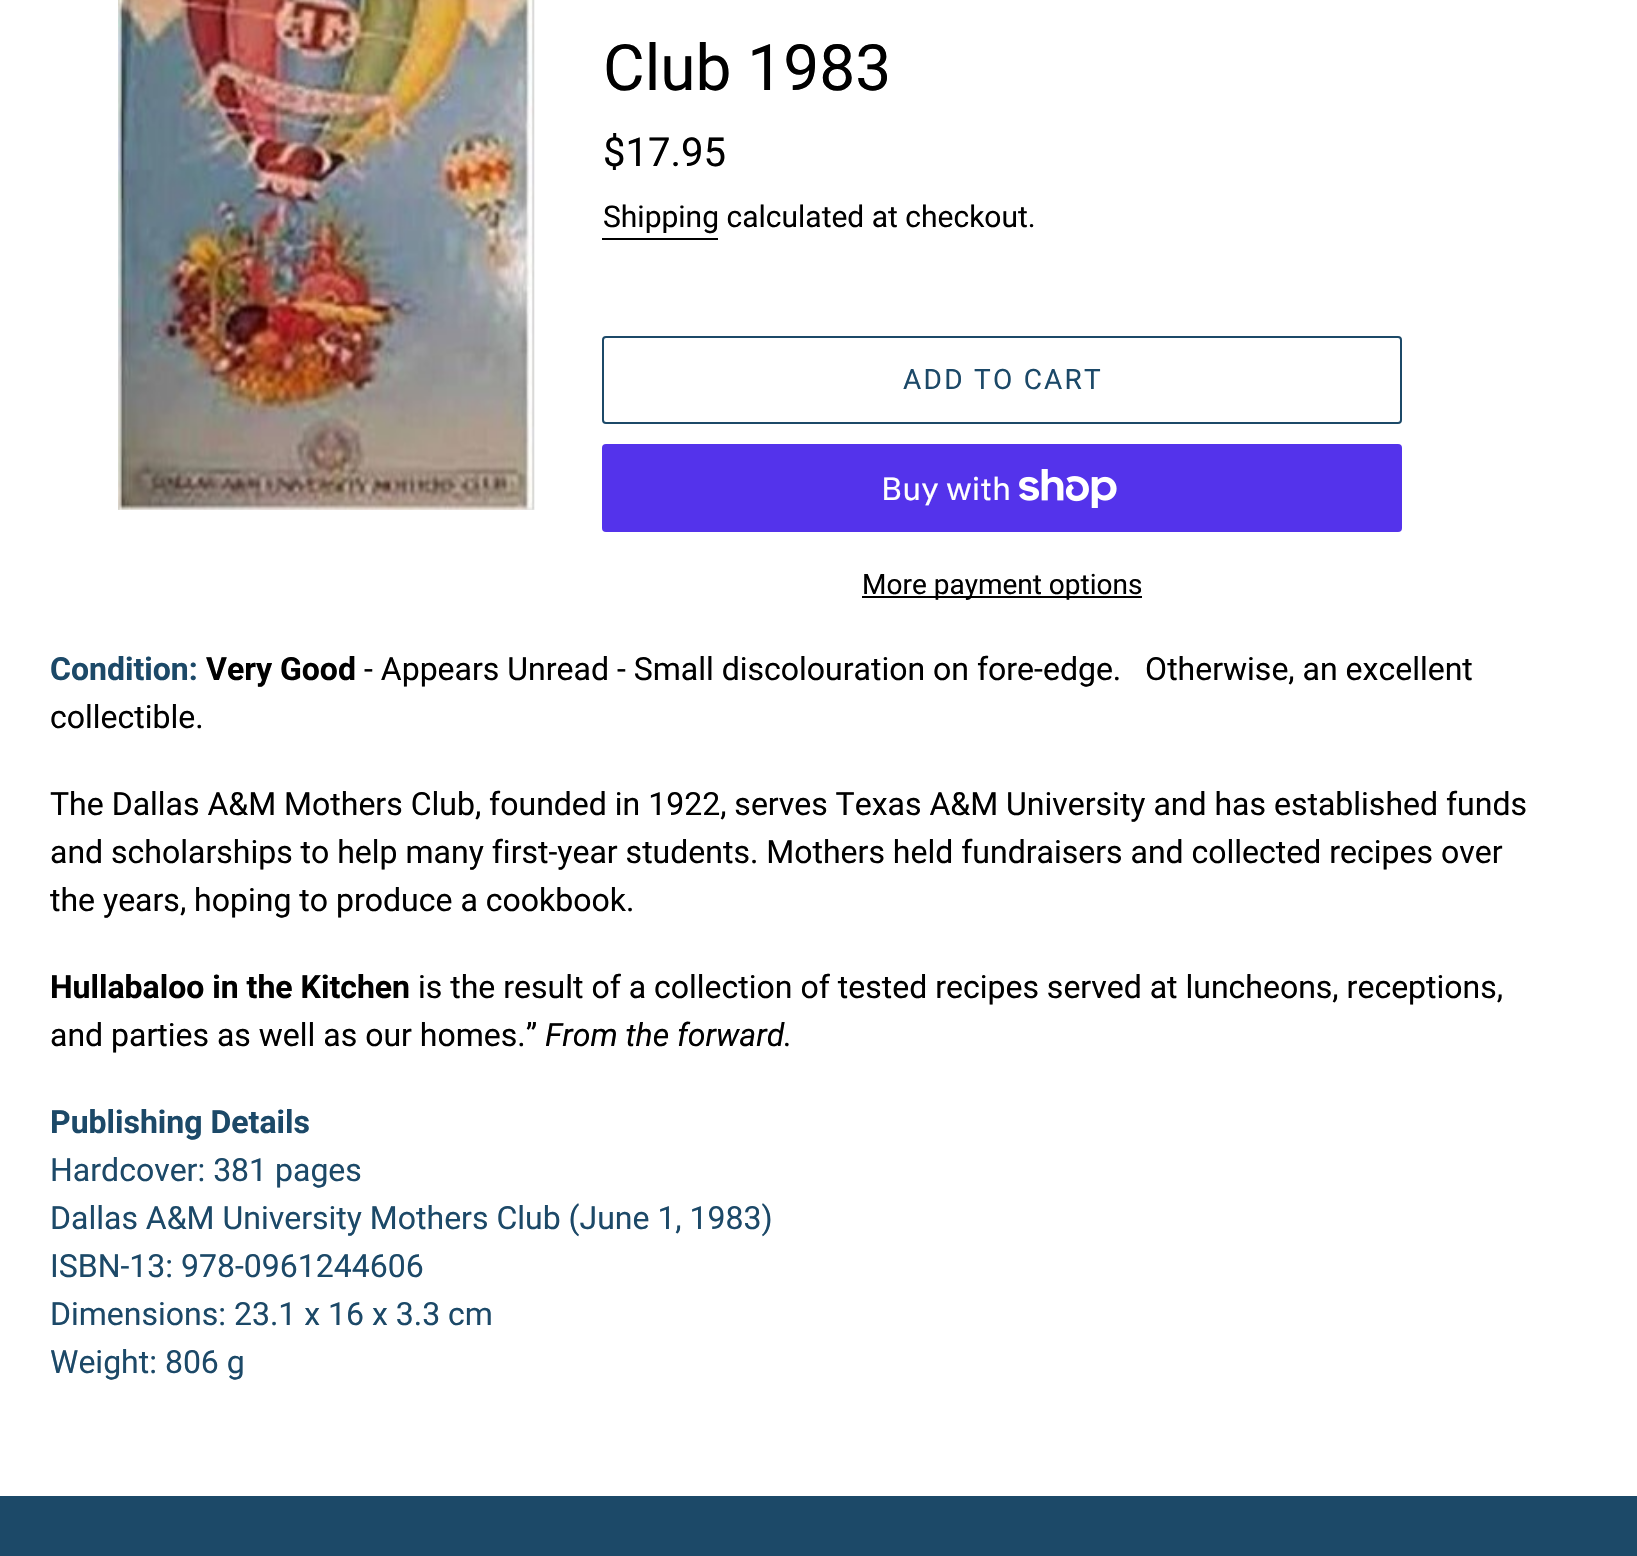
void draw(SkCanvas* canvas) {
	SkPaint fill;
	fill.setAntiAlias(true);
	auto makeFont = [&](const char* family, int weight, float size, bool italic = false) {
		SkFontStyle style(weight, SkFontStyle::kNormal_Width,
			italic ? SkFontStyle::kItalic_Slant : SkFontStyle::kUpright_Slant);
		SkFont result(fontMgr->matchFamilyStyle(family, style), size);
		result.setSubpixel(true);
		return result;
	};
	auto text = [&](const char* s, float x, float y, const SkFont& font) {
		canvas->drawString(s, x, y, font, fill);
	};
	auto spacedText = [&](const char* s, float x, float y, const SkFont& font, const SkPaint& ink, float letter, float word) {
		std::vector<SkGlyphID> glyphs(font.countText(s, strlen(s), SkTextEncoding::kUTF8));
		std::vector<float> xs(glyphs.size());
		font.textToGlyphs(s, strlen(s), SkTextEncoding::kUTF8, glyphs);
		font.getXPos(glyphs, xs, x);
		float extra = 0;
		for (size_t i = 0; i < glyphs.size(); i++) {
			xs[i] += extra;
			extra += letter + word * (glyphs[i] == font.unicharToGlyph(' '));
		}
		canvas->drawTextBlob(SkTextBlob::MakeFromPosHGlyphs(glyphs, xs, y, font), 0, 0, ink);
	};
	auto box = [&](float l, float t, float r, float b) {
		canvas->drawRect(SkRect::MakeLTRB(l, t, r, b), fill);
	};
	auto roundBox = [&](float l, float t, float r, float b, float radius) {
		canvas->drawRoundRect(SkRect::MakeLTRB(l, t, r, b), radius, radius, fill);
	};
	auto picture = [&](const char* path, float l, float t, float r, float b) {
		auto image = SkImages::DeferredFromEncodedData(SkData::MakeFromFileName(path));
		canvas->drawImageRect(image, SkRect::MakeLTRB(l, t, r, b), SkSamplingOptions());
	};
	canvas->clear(0xFFFFFFFF);
	picture("image0.png", 118, 0, 535, 510);
	fill.setColor(0xFF000000);
	box(602, 238, 718, 240);
	fill.setStyle(SkPaint::kStroke_Style);
	fill.setStrokeWidth(2);
	fill.setColor(0xFF1C4968);
	canvas->drawRoundRect(SkRect::MakeLTRB(603, 337, 1401, 423), 3, 3, fill);
	fill.setStyle(SkPaint::kFill_Style);
	fill.setColor(0xFF5433EB);
	roundBox(602, 444, 1402, 532, 4);
	picture("image1.png", 1019, 469, 1117, 508);
	fill.setColor(0xFF000000);
	box(862, 596, 1142, 598);
	fill.setColor(0xFF1C4968);
	box(0, 1496, 1637, 1556);
	auto font1 = makeFont("Roboto", 400, 64);
	fill.setColor(0xFF000000);
	text("Club 1983", 603, 90, font1);
	auto font2 = makeFont("Roboto", 400, 40);
	text("$17.95", 603, 166, font2);
	auto font3 = makeFont("Roboto", 400, 30);
	text("Shipping calculated at checkout.", 603, 227, font3);
	auto font4 = makeFont("Roboto", 400, 28);
	fill.setColor(0xFF1C4968);
	spacedText("ADD TO CART", 903, 389, font4, fill, 2.25f, 0);
	auto font5 = makeFont("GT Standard", 400, 32);
	fill.setColor(0xFFFFFFFF);
	text("Buy with", 881, 500, font5);
	fill.setColor(0xFF000000);
	text("More payment options", 862, 594, font4);
	auto font6 = makeFont("Roboto", 700, 32);
	fill.setColor(0xFF1C4968);
	text("Condition:", 50, 680, font6);
	fill.setColor(0xFF000000);
	text("Very Good", 206, 680, font6);
	auto font7 = makeFont("Roboto", 400, 32);
	text("- Appears Unread - Small discolouration on fore-edge.   Otherwise, an excellent", 364, 680, font7);
	text("collectible.", 50, 728, font7);
	text("The Dallas A&M Mothers Club, founded in 1922, serves Texas A&M University and has established funds", 50, 815, font7);
	text("and scholarships to help many first-year students. Mothers held fundraisers and collected recipes over", 50, 863, font7);
	text("the years, hoping to produce a cookbook.", 50, 911, font7);
	text("Hullabaloo in the Kitchen", 50, 998, font6);
	text("is the result of a collection of tested recipes served at luncheons, receptions,", 418, 998, font7);
	text("and parties as well as our homes.”", 50, 1046, font7);
	auto font8 = makeFont("Roboto", 400, 32, true);
	text("From the forward.", 545, 1046, font8);
	fill.setColor(0xFF1C4968);
	text("Publishing Details", 50, 1133, font6);
	text("Hardcover: 381 pages", 50, 1181, font7);
	text("Dallas A&M University Mothers Club (June 1, 1983)", 50, 1229, font7);
	text("ISBN-13: 978-0961244606", 50, 1277, font7);
	text("Dimensions: 23.1 x 16 x 3.3 cm", 50, 1325, font7);
	text("Weight: 806 g", 50, 1373, font7);
}
